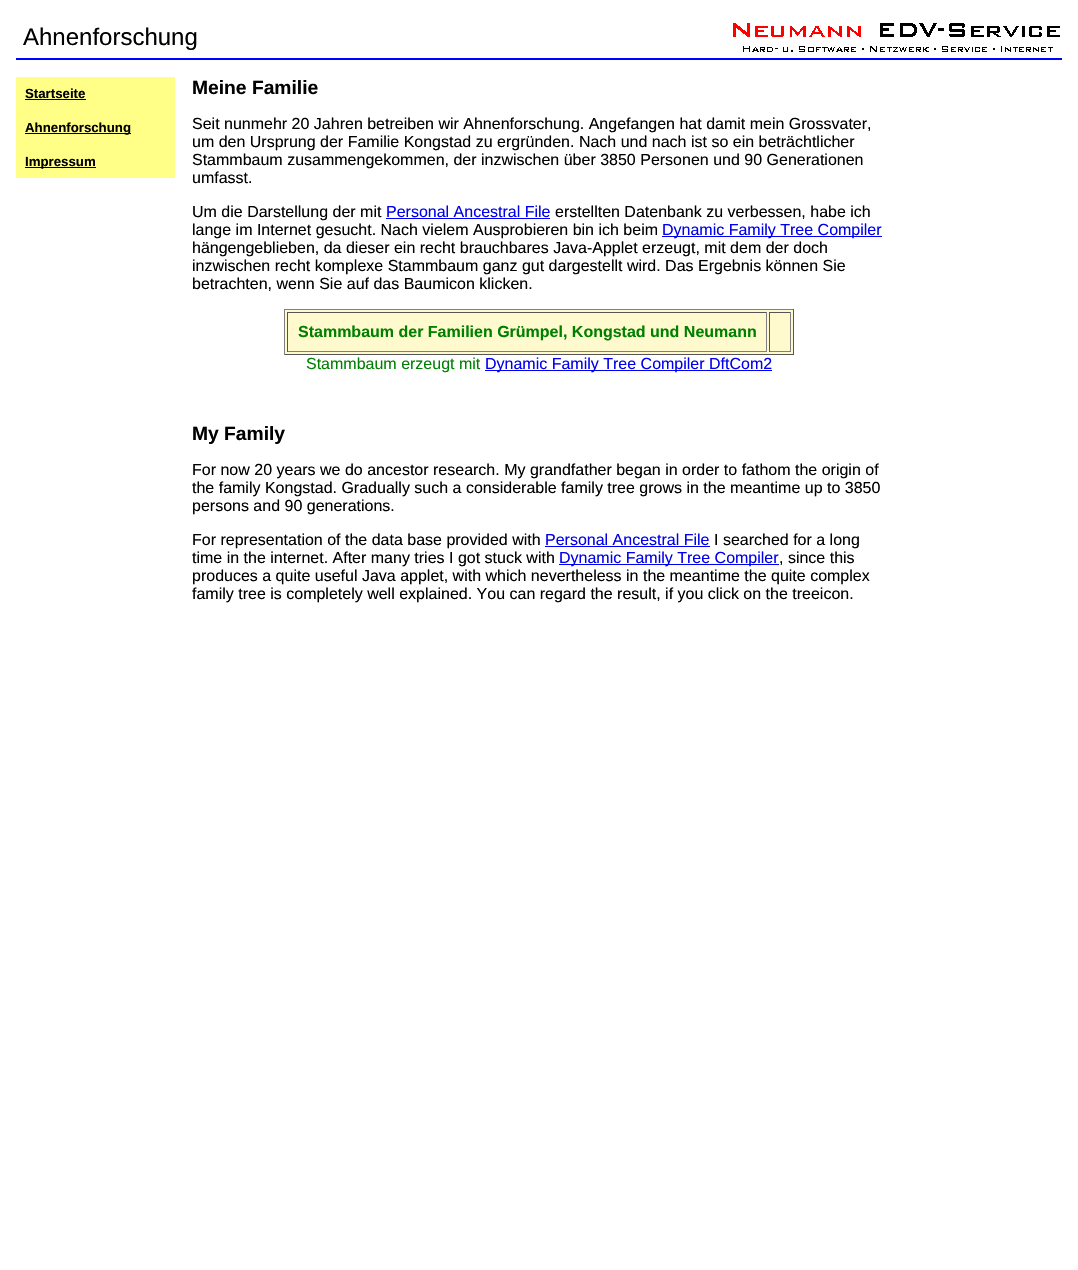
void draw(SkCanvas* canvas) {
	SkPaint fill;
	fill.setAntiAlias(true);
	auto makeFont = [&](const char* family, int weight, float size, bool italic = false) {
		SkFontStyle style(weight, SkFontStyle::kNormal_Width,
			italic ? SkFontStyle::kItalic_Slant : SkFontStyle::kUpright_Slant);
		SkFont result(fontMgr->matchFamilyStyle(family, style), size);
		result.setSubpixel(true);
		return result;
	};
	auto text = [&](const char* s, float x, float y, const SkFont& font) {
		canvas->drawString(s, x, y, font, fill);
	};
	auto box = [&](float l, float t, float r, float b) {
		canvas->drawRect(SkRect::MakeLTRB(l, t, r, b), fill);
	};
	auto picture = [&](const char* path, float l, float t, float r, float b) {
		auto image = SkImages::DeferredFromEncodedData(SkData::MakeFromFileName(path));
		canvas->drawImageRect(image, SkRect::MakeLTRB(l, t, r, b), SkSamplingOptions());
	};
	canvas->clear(0xFFFFFFFF);
	picture("image0.png", 733, 23, 1060, 52);
	fill.setColor(0xFF0000FF);
	box(16, 58, 1062, 60);
	fill.setColor(0xFFFFFF88);
	box(16, 77, 175, 178);
	fill.setColor(0xFF000000);
	box(25, 99, 86, 100);
	box(25, 133, 131, 134);
	box(25, 167, 96, 168);
	fill.setColor(0xFF0000EE);
	box(386, 218, 550, 219);
	box(662, 236, 882, 237);
	fill.setColor(0xFFFFFACD);
	box(285, 310, 793, 354);
	fill.setColor(0xFF808080);
	box(284, 309, 794, 310);
	fill.setColor(0xFF555555);
	box(793, 309, 794, 355);
	box(284, 354, 794, 355);
	fill.setColor(0xFF808080);
	box(284, 309, 285, 355);
	fill.setColor(0xFF555555);
	box(287, 312, 767, 313);
	fill.setColor(0xFF808080);
	box(766, 312, 767, 352);
	box(287, 351, 767, 352);
	fill.setColor(0xFF555555);
	box(287, 312, 288, 352);
	box(769, 312, 791, 313);
	fill.setColor(0xFF808080);
	box(790, 312, 791, 352);
	box(769, 351, 791, 352);
	fill.setColor(0xFF555555);
	box(769, 312, 770, 352);
	fill.setColor(0xFF0000EE);
	box(485, 370, 772, 371);
	box(545, 546, 710, 547);
	box(559, 564, 779, 565);
	auto font1 = makeFont("Liberation Sans", 400, 24);
	fill.setColor(0xFF000000);
	text("Ahnenforschung", 23, 45, font1);
	auto font2 = makeFont("Liberation Sans", 700, 13.25f);
	text("Startseite", 25, 98, font2);
	text("Ahnenforschung", 25, 132, font2);
	text("Impressum", 25, 166, font2);
	auto font3 = makeFont("Liberation Sans", 700, 19.25f);
	text("Meine Familie", 192, 94, font3);
	auto font4 = makeFont("Liberation Sans", 400, 16);
	text("Seit nunmehr 20 Jahren betreiben wir Ahnenforschung. Angefangen hat damit mein Grossvater,", 192, 129, font4);
	text("um den Ursprung der Familie Kongstad zu ergründen. Nach und nach ist so ein beträchtlicher", 192, 147, font4);
	text("Stammbaum zusammengekommen, der inzwischen über 3850 Personen und 90 Generationen", 192, 165, font4);
	text("umfasst.", 192, 183, font4);
	text("Um die Darstellung der mit", 192, 217, font4);
	fill.setColor(0xFF0000EE);
	text("Personal Ancestral File", 386, 217, font4);
	fill.setColor(0xFF000000);
	text("erstellten Datenbank zu verbessen, habe ich", 555, 217, font4);
	text("lange im Internet gesucht. Nach vielem Ausprobieren bin ich beim", 192, 235, font4);
	fill.setColor(0xFF0000EE);
	text("Dynamic Family Tree Compiler", 662, 235, font4);
	fill.setColor(0xFF000000);
	text("hängengeblieben, da dieser ein recht brauchbares Java-Applet erzeugt, mit dem der doch", 192, 253, font4);
	text("inzwischen recht komplexe Stammbaum ganz gut dargestellt wird. Das Ergebnis können Sie", 192, 271, font4);
	text("betrachten, wenn Sie auf das Baumicon klicken.", 192, 289, font4);
	auto font5 = makeFont("Liberation Sans", 700, 16);
	fill.setColor(0xFF008000);
	text("Stammbaum der Familien Grümpel, Kongstad und Neumann", 298, 337, font5);
	text("Stammbaum erzeugt mit", 306, 369, font4);
	fill.setColor(0xFF0000EE);
	text("Dynamic Family Tree Compiler DftCom2", 485, 369, font4);
	fill.setColor(0xFF000000);
	text("My Family", 192, 440, font3);
	text("For now 20 years we do ancestor research. My grandfather began in order to fathom the origin of", 192, 475, font4);
	text("the family Kongstad. Gradually such a considerable family tree grows in the meantime up to 3850", 192, 493, font4);
	text("persons and 90 generations.", 192, 511, font4);
	text("For representation of the data base provided with", 192, 545, font4);
	fill.setColor(0xFF0000EE);
	text("Personal Ancestral File", 545, 545, font4);
	fill.setColor(0xFF000000);
	text("I searched for a long", 714, 545, font4);
	text("time in the internet. After many tries I got stuck with", 192, 563, font4);
	fill.setColor(0xFF0000EE);
	text("Dynamic Family Tree Compiler", 559, 563, font4);
	fill.setColor(0xFF000000);
	text(", since this", 779, 563, font4);
	text("produces a quite useful Java applet, with which nevertheless in the meantime the quite complex", 192, 581, font4);
	text("family tree is completely well explained. You can regard the result, if you click on the treeicon.", 192, 599, font4);
}
